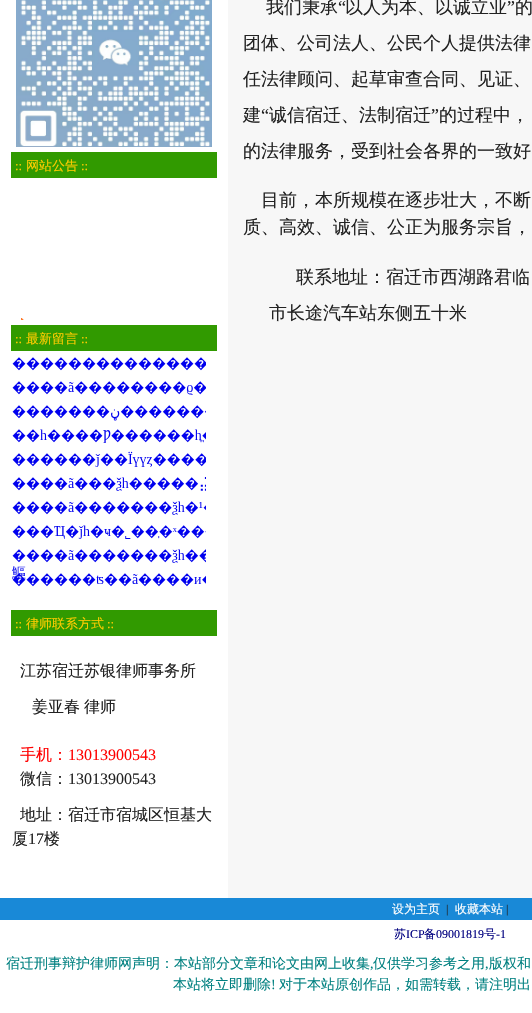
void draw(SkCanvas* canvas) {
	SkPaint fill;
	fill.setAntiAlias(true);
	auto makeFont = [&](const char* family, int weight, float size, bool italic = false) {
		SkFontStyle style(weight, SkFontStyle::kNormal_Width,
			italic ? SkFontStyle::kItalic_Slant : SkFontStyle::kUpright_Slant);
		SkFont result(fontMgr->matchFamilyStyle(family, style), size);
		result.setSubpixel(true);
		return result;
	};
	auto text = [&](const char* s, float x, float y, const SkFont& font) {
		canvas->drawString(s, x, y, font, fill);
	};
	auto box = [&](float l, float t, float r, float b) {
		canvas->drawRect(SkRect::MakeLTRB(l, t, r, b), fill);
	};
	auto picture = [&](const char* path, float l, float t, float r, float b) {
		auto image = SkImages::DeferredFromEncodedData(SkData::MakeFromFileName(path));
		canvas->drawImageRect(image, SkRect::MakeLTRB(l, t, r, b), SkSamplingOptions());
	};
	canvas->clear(0xFFFFFFFF);
	picture("image0.png", 16, 0, 212, 147);
	fill.setColor(0xFF319A00);
	box(11, 152, 217, 178);
	picture("image1.png", 21, 318, 24, 320);
	box(11, 325, 217, 351);
	picture("image2.png", 12, 357, 206, 587);
	box(11, 610, 217, 636);
	fill.setColor(0xFFF7F7F7);
	box(228, 0, 532, 898);
	fill.setColor(0xFF1989D7);
	box(0, 898, 532, 920);
	auto font1 = makeFont("Liberation Serif", 400, 13);
	fill.setColor(0xFFFFCC00);
	text("::", 15, 170, font1);
	auto font2 = makeFont("WenQuanYi Zen Hei", 500, 13);
	text("网站公告", 26, 170, font2);
	text("::", 81, 170, font1);
	text("::", 15, 343, font1);
	text("最新留言", 26, 343, font2);
	text("::", 81, 343, font1);
	text("::", 15, 628, font1);
	text("律师联系方式", 26, 628, font2);
	text("::", 107, 628, font1);
	auto font3 = makeFont("WenQuanYi Zen Hei", 500, 16);
	fill.setColor(0xFF222222);
	text("江苏宿迁苏银律师事务所", 20, 676, font3);
	text("姜亚春", 32, 712, font3);
	text("律师", 84, 712, font3);
	fill.setColor(0xFFFF0000);
	text("手机：", 20, 760, font3);
	auto font4 = makeFont("Liberation Serif", 400, 16);
	text("13013900543", 68, 760, font4);
	fill.setColor(0xFF222222);
	text("微信：", 20, 784, font3);
	text("13013900543", 68, 784, font4);
	text("地址：宿迁市宿城区恒基大", 20, 820, font3);
	text("厦", 12, 844, font3);
	text("17", 28, 844, font4);
	text("楼", 44, 844, font3);
	auto font5 = makeFont("WenQuanYi Zen Hei", 500, 18);
	text("我们秉承", 266, 13, font5);
	auto font6 = makeFont("Liberation Serif", 400, 18);
	text("“", 338, 13, font6);
	text("以人为本、以诚立业", 345, 13, font5);
	text("”", 507, 13, font6);
	text("的", 515, 13, font5);
	text("团体、公司法人、公民个人提供法律", 243, 49, font5);
	text("任法律顾问、起草审查合同、见证、", 243, 85, font5);
	text("建", 243, 121, font5);
	text("“", 261, 121, font6);
	text("诚信宿迁、法制宿迁", 269, 121, font5);
	text("”", 431, 121, font6);
	text("的过程中，", 439, 121, font5);
	text("的法律服务，受到社会各界的一致好", 243, 157, font5);
	text("目前，本所规模在逐步壮大，不断", 261, 206, font5);
	text("质、高效、诚信、公正为服务宗旨，", 243, 233, font5);
	text("联系地址：宿迁市西湖路君临", 296, 283, font5);
	text("市长途汽车站东侧五十米", 269, 319, font5);
	auto font7 = makeFont("WenQuanYi Zen Hei", 500, 12);
	fill.setColor(0xFFFFFFFF);
	text("设为主页", 392, 913, font7);
	auto font8 = makeFont("Liberation Serif", 400, 12);
	fill.setColor(0xFF222222);
	text("|", 446, 913, font8);
	fill.setColor(0xFFFFFFFF);
	text("收藏本站", 455, 913, font7);
	fill.setColor(0xFF222222);
	text("|", 506, 913, font8);
	fill.setColor(0xFF00007F);
	text("苏", 394, 938, font7);
	text("ICP", 406, 938, font8);
	text("备", 424, 938, font7);
	text("09001819", 436, 938, font8);
	text("号", 484, 938, font7);
	text("-1", 496, 938, font8);
	auto font9 = makeFont("WenQuanYi Zen Hei", 500, 14);
	fill.setColor(0xFF008080);
	text("宿迁刑事辩护律师网声明：本站部分文章和论文由网上收集", 6, 968, font9);
	auto font10 = makeFont("Liberation Serif", 400, 14);
	text(",", 370, 968, font10);
	text("仅供学习参考之用", 373, 968, font9);
	text(",", 485, 968, font10);
	text("版权和", 489, 968, font9);
	text("本站将立即删除", 173, 989, font9);
	text("!", 271, 989, font10);
	text("对于本站原创作品，如需转载，请注明出", 279, 989, font9);
}
